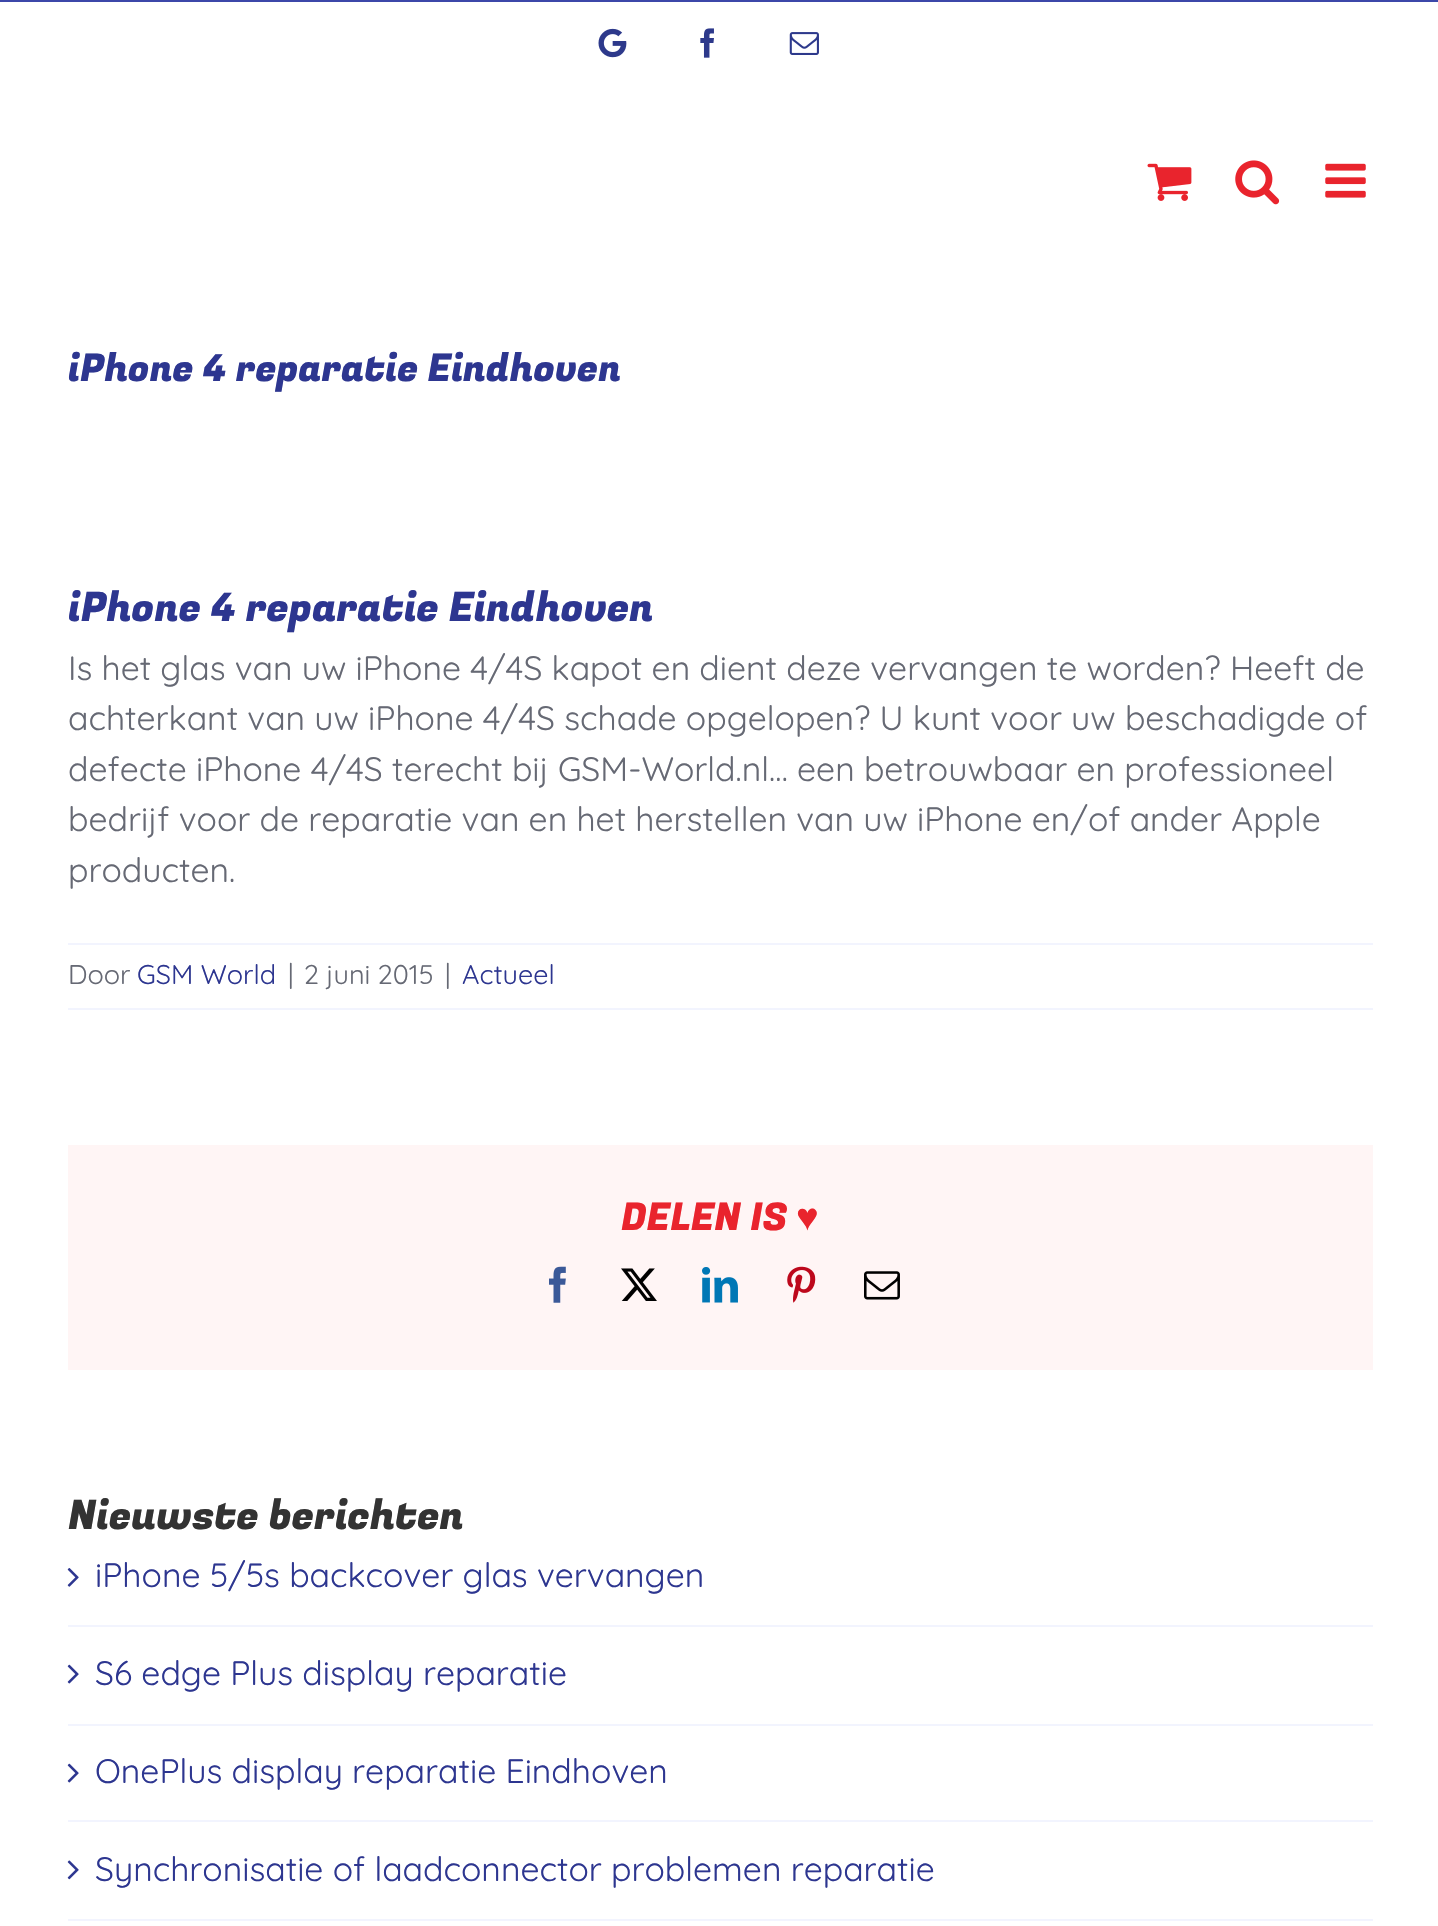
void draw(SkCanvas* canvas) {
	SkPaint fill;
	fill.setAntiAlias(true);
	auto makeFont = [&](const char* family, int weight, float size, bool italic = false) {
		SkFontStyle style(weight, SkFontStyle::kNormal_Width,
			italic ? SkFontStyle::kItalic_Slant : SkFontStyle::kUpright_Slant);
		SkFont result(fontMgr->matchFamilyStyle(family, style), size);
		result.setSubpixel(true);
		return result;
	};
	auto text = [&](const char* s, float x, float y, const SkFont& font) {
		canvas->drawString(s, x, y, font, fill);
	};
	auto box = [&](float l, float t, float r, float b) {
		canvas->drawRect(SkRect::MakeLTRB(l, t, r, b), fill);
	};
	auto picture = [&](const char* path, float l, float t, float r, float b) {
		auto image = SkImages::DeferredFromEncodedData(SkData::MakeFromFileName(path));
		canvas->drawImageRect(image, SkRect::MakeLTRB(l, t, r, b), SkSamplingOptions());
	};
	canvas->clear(0xFFFFFFFF);
	fill.setColor(0xFF3C47A9);
	box(0, 0, 1438, 2);
	picture("image0.png", 598, 28, 627, 58);
	picture("image1.png", 700, 28, 714, 58);
	picture("image2.png", 789, 32, 819, 55);
	picture("image3.png", 1147, 163, 1192, 201);
	picture("image4.png", 1235, 160, 1280, 205);
	picture("image5.png", 1325, 163, 1366, 198);
	fill.setColor(0xFFF2F4FE);
	box(68, 943, 1373, 945);
	box(68, 1008, 1373, 1010);
	fill.setColor(0xFFFFF5F5);
	box(68, 1145, 1373, 1370);
	picture("image6.png", 549, 1266, 566, 1303);
	picture("image7.png", 621, 1268, 657, 1301);
	picture("image8.png", 702, 1267, 738, 1303);
	picture("image9.png", 787, 1266, 816, 1303);
	picture("image10.png", 864, 1271, 900, 1300);
	fill.setColor(0xFFF2F4FE);
	box(68, 1625, 1373, 1627);
	picture("image11.png", 67, 1568, 79, 1587);
	box(68, 1724, 1373, 1726);
	picture("image12.png", 67, 1664, 79, 1684);
	box(68, 1820, 1373, 1822);
	picture("image12.png", 67, 1763, 79, 1783);
	box(68, 1919, 1373, 1921);
	picture("image13.png", 67, 1860, 79, 1880);
	auto font1 = makeFont("Fugaz One", 400, 38.25f);
	fill.setColor(0xFF2D3690);
	text("iPhone 4 reparatie Eindhoven", 68, 381, font1);
	auto font2 = makeFont("Fugaz One", 400, 40.5f);
	text("iPhone 4 reparatie Eindhoven", 68, 621, font2);
	auto font3 = makeFont("Quicksand", 400, 33.75f);
	fill.setColor(0xFF666974);
	text("Is het glas van uw iPhone 4/4S kapot en dient deze vervangen te worden? Heeft de", 68, 680, font3);
	text("achterkant van uw iPhone 4/4S schade opgelopen? U kunt voor uw beschadigde of", 68, 730, font3);
	text("defecte iPhone 4/4S terecht bij GSM-World.nl… een betrouwbaar en professioneel", 68, 781, font3);
	text("bedrijf voor de reparatie van en het herstellen van uw iPhone en/of ander Apple", 68, 831, font3);
	text("producten.", 68, 882, font3);
	auto font4 = makeFont("Quicksand", 400, 27);
	text("Door", 68, 984, font4);
	fill.setColor(0xFF2D3690);
	text("GSM World", 137, 984, font4);
	fill.setColor(0xFF666974);
	text("|", 288, 984, font4);
	text("2 juni 2015", 304, 984, font4);
	text("|", 445, 984, font4);
	fill.setColor(0xFF2D3690);
	text("Actueel", 462, 984, font4);
	fill.setColor(0xFFE9242D);
	text("DELEN IS", 621, 1230, font1);
	auto font5 = makeFont("Liberation Serif", 400, 38.25f);
	text("♥", 796, 1230, font5);
	fill.setColor(0xFF333333);
	text("Nieuwste berichten", 68, 1529, font2);
	fill.setColor(0xFF2D3690);
	text("iPhone 5/5s backcover glas vervangen", 95, 1587, font3);
	text("S6 edge Plus display reparatie", 95, 1685, font3);
	text("OnePlus display reparatie Eindhoven", 95, 1783, font3);
	text("Synchronisatie of laadconnector problemen reparatie", 95, 1881, font3);
}
